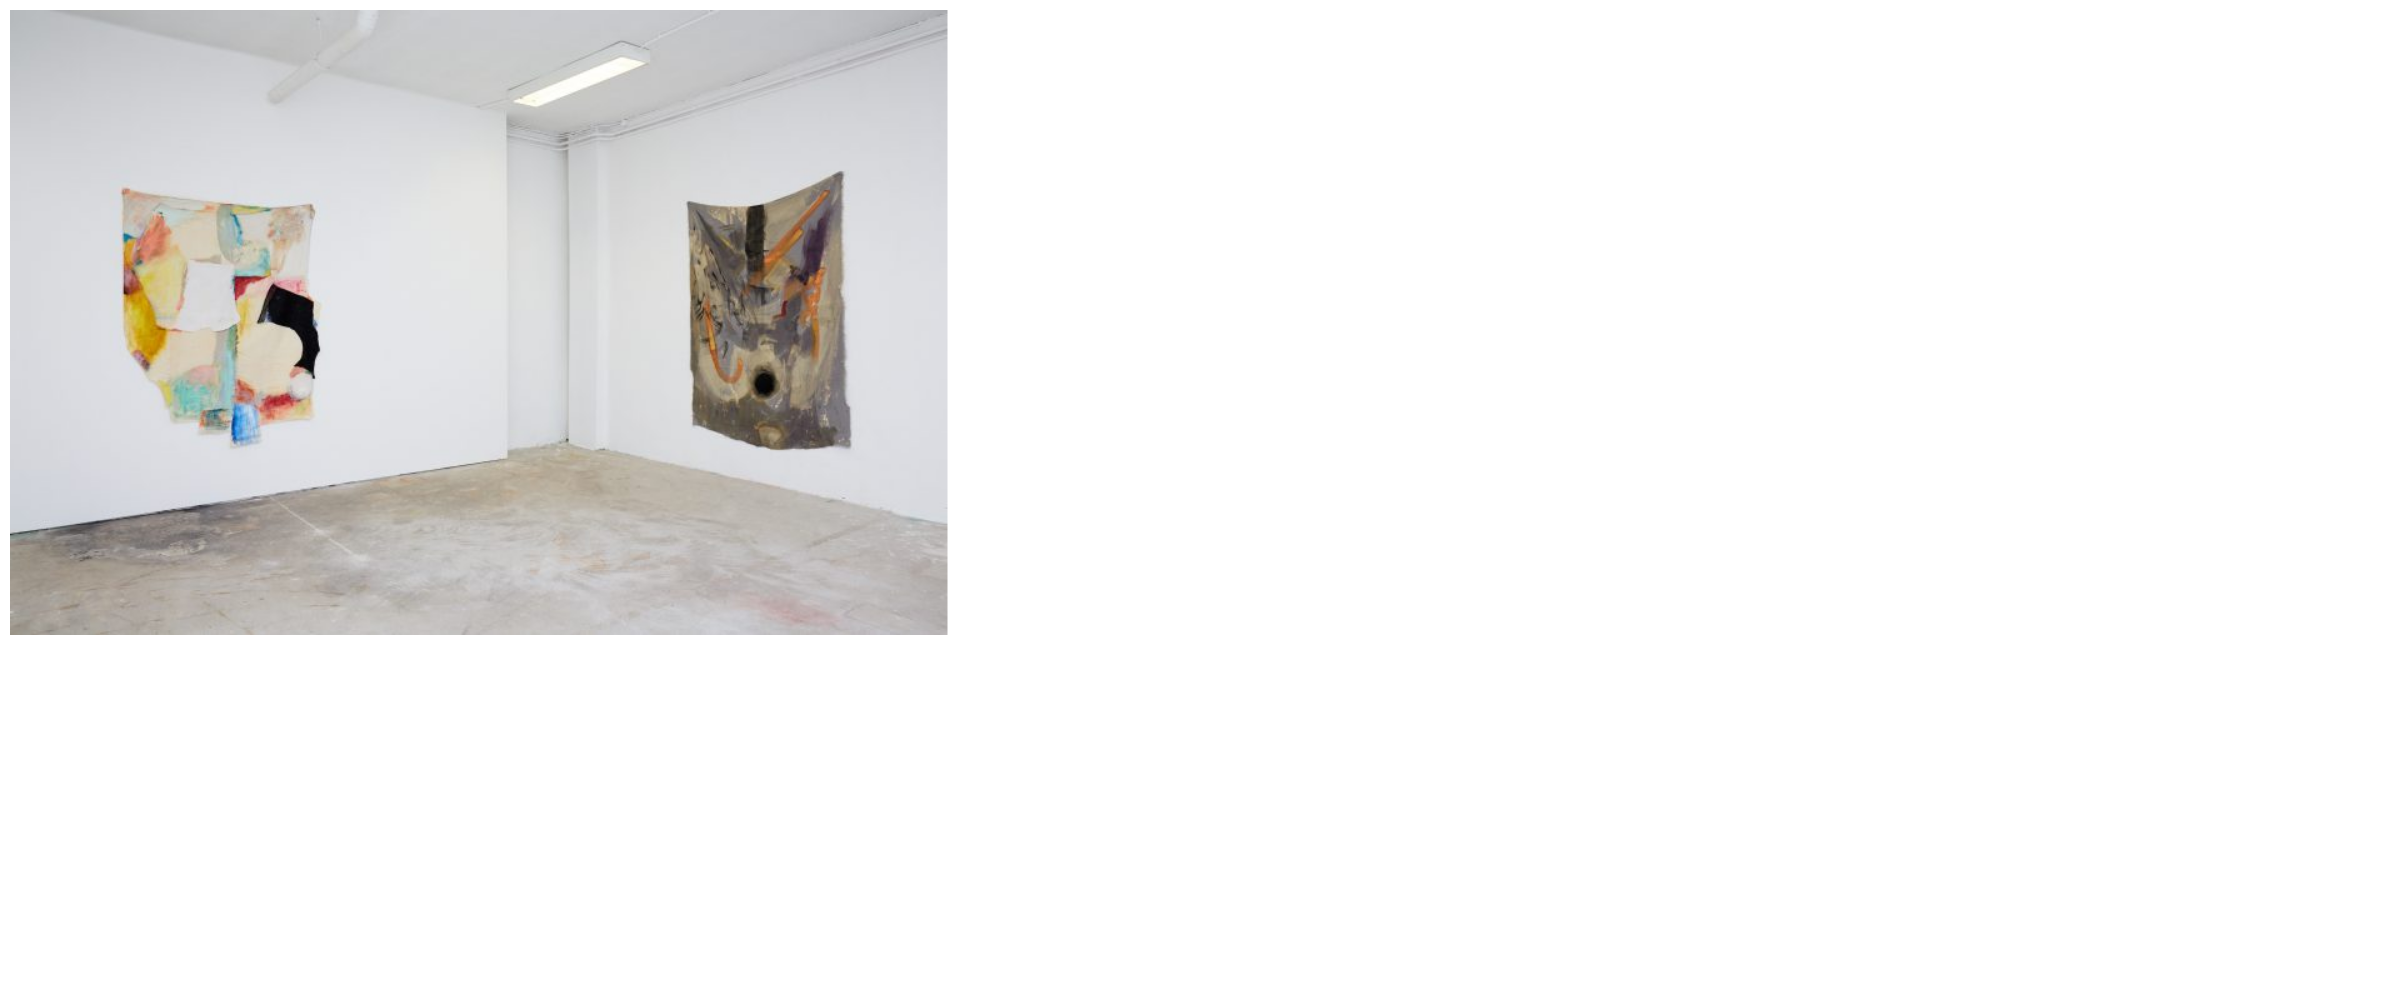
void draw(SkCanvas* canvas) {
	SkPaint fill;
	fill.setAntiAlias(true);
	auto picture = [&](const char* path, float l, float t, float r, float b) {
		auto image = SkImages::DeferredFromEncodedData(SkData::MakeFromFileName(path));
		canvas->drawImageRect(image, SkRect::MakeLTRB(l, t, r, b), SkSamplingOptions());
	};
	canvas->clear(0xFFFFFFFF);
	picture("image0.png", 10, 10, 948, 635);
}
